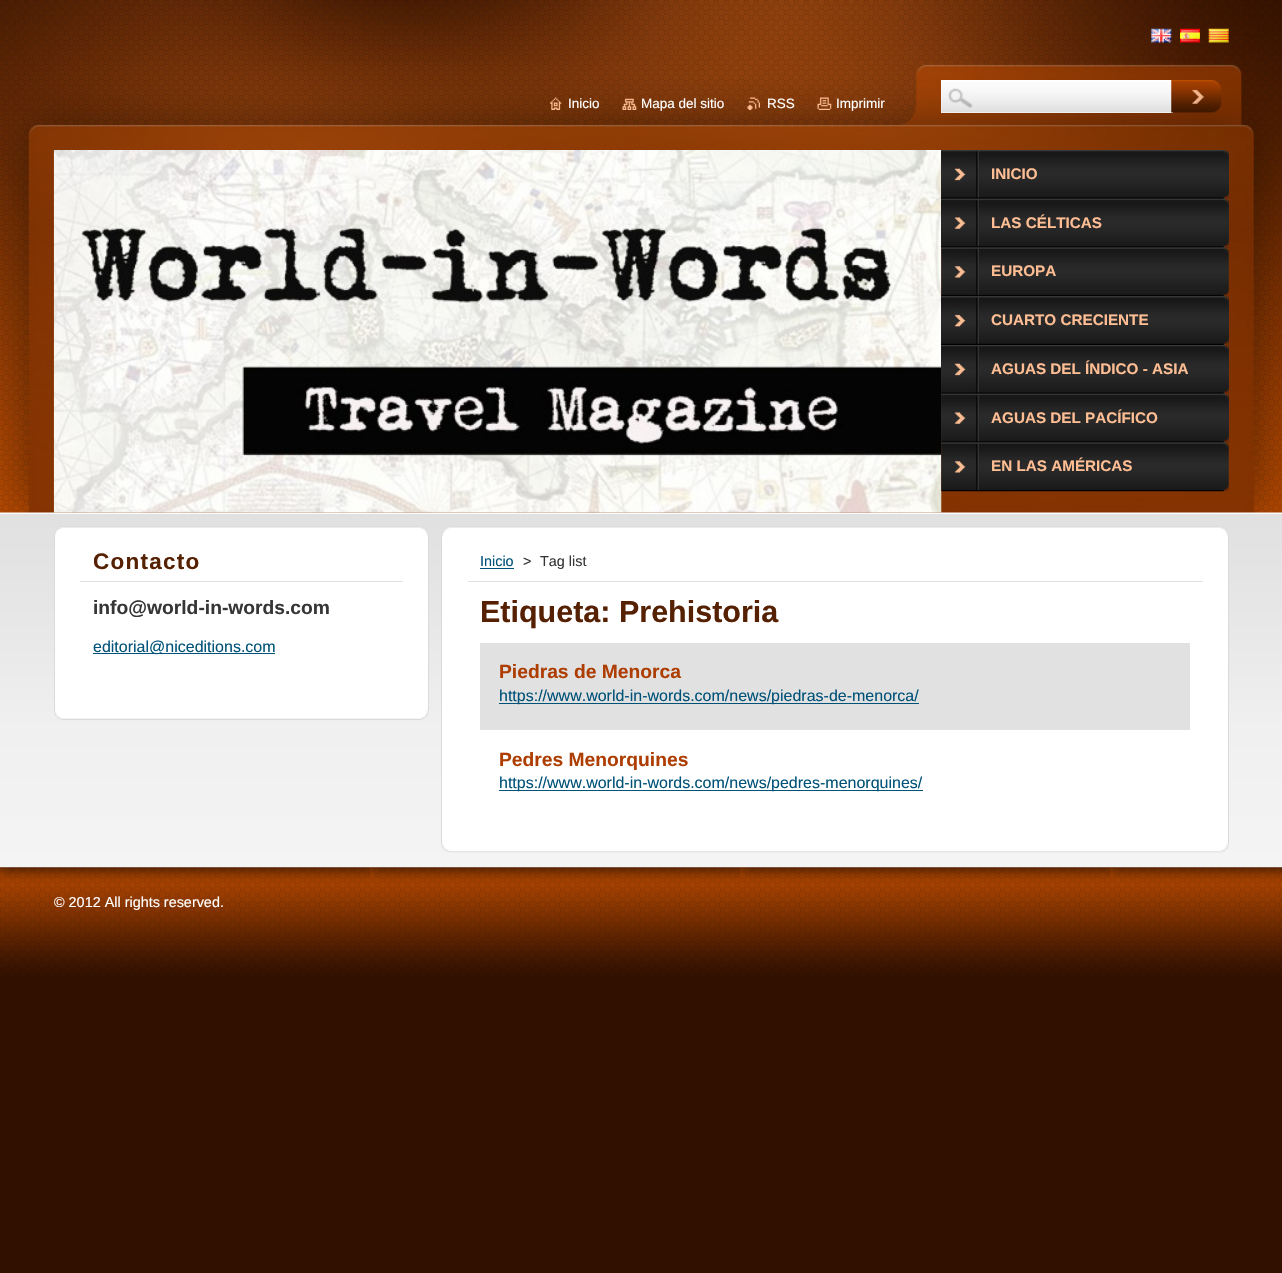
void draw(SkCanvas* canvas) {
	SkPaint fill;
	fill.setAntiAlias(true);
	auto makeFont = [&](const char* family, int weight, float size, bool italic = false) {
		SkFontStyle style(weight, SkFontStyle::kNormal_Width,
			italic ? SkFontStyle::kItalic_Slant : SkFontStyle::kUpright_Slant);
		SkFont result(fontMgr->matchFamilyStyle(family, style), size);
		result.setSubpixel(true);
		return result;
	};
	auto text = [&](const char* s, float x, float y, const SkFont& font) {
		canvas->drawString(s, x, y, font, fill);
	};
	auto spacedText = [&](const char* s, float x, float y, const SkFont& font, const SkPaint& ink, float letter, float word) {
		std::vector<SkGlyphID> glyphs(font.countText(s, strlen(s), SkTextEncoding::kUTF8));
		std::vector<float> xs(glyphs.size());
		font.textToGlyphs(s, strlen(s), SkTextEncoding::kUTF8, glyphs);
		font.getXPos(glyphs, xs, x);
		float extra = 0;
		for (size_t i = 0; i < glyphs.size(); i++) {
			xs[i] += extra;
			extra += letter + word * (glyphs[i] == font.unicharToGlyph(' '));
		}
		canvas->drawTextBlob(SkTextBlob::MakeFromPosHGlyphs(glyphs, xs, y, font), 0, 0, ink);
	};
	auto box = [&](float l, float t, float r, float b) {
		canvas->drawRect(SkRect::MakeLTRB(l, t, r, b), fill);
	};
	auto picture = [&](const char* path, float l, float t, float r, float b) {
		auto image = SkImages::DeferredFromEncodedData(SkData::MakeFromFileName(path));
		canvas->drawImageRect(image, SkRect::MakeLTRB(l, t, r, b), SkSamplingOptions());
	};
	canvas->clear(0xFF321000);
	picture("image0.png", 0, 513, 1282, 868);
	picture("image1.png", 0, 0, 1282, 514);
	picture("image2.png", 1151, 28, 1172, 43);
	picture("image3.png", 1180, 28, 1200, 43);
	picture("image4.png", 1208, 28, 1229, 43);
	picture("image5.png", 550, 97, 562, 110);
	picture("image6.png", 622, 98, 637, 110);
	picture("image7.png", 747, 97, 760, 110);
	picture("image8.png", 817, 97, 832, 110);
	fill.setColor(0xFFFFFFFF);
	box(941, 80, 1173, 113);
	picture("image9.png", 941, 82, 1173, 113);
	picture("image10.png", 1171, 80, 1222, 113);
	picture("image11.png", 53, 150, 942, 513);
	fill.setColor(0xFF2A2A2A);
	box(941, 150, 1229, 248);
	picture("image12.png", 941, 150, 1229, 199);
	picture("image13.png", 941, 198, 1229, 248);
	picture("image14.png", 941, 247, 1229, 296);
	box(941, 296, 1229, 443);
	picture("image15.png", 941, 296, 1229, 345);
	picture("image12.png", 941, 345, 1229, 394);
	picture("image13.png", 941, 393, 1229, 443);
	picture("image16.png", 941, 442, 1229, 492);
	picture("image17.png", 54, 526, 429, 536);
	fill.setColor(0xFFFFFFFF);
	box(55, 536, 428, 710);
	fill.setColor(0xFFDADADA);
	box(428, 536, 429, 710);
	box(54, 536, 55, 710);
	fill.setColor(0xFFE1E1E1);
	box(80, 581, 403, 582);
	fill.setColor(0xFF005279);
	box(93, 653, 261, 654);
	box(261, 653, 275, 654);
	picture("image18.png", 54, 710, 429, 720);
	picture("image19.png", 441, 526, 1229, 536);
	fill.setColor(0xFFFFFFFF);
	box(442, 536, 1228, 843);
	fill.setColor(0xFFDADADA);
	box(1228, 536, 1229, 843);
	box(441, 536, 442, 843);
	fill.setColor(0xFFE1E1E1);
	box(468, 581, 1203, 582);
	fill.setColor(0xFF005279);
	box(480, 568, 514, 569);
	fill.setColor(0xFFE1E1E1);
	box(480, 643, 1190, 730);
	fill.setColor(0xFF005279);
	box(499, 703, 919, 704);
	box(499, 790, 923, 791);
	picture("image20.png", 441, 843, 1229, 853);
	picture("image21.png", 0, 867, 1282, 980);
	auto font1 = makeFont("Liberation Sans", 400, 13.5f);
	fill.setColor(0xFFFFFFFF);
	text("Inicio", 568, 108, font1);
	text("Mapa del sitio", 641, 108, font1);
	text("RSS", 767, 108, font1);
	text("Imprimir", 836, 108, font1);
	auto font2 = makeFont("Liberation Sans", 700, 15.25f);
	fill.setColor(0xFFFFBE93);
	text("INICIO", 991, 179, font2);
	text("LAS CÉLTICAS", 991, 228, font2);
	text("EUROPA", 991, 276, font2);
	text("CUARTO CRECIENTE", 991, 325, font2);
	text("AGUAS DEL ÍNDICO - ASIA", 991, 374, font2);
	text("AGUAS DEL PACÍFICO", 991, 423, font2);
	text("EN LAS AMÉRICAS", 991, 471, font2);
	auto font3 = makeFont("Liberation Sans", 700, 22.5f);
	fill.setColor(0xFF562003);
	spacedText("Contacto", 93, 569, font3, fill, 1.25f, 0);
	auto font4 = makeFont("Liberation Sans", 700, 19.25f);
	fill.setColor(0xFF363636);
	text("info@world-in-words.com", 93, 614, font4);
	auto font5 = makeFont("Liberation Sans", 400, 16);
	fill.setColor(0xFF005279);
	text("editorial@niceditions.com", 93, 652, font5);
	auto font6 = makeFont("Liberation Sans", 400, 14.4f);
	text("Inicio", 480, 566, font6);
	fill.setColor(0xFF363636);
	text(">", 523, 566, font6);
	text("Tag list", 540, 566, font6);
	auto font7 = makeFont("Liberation Sans", 700, 30.5f);
	fill.setColor(0xFF562003);
	text("Etiqueta: Prehistoria", 480, 622, font7);
	fill.setColor(0xFFAD3D01);
	text("Piedras de Menorca", 499, 678, font4);
	fill.setColor(0xFF005279);
	text("https://www.world-in-words.com/news/piedras-de-menorca/", 499, 701, font5);
	fill.setColor(0xFFAD3D01);
	text("Pedres Menorquines", 499, 766, font4);
	fill.setColor(0xFF005279);
	text("https://www.world-in-words.com/news/pedres-menorquines/", 499, 788, font5);
	fill.setColor(0xFFFFFFFF);
	text("© 2012 All rights reserved.", 54, 907, font6);
}
